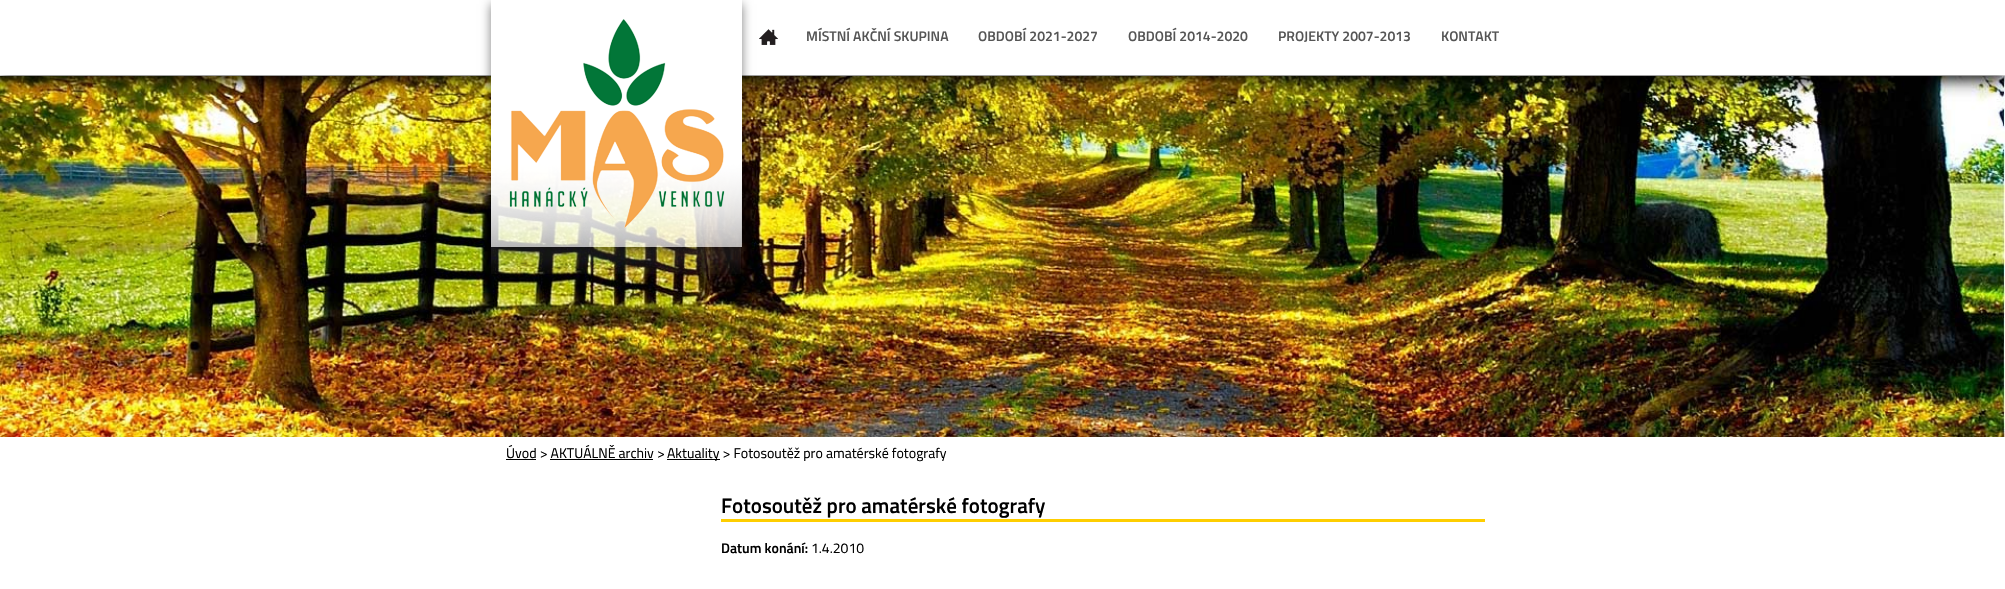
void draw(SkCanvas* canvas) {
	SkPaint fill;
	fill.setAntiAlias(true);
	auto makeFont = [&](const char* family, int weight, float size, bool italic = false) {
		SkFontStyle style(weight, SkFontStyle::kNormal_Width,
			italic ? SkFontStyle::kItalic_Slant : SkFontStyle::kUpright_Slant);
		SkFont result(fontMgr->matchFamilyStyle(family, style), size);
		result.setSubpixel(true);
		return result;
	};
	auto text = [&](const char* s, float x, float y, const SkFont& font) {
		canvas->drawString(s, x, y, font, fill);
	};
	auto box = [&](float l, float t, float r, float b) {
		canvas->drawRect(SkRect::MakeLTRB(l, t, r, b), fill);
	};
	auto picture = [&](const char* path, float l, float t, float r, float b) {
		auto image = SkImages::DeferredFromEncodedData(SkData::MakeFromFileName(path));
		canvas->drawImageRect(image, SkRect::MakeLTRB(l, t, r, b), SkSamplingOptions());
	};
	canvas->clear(0xFFFFFFFF);
	picture("image2.png", 0, 76, 2005, 437);
	canvas->save();
	canvas->clipRect(SkRect::MakeLTRB(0, 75, 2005, 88));
	fill.setColor(0x80000000);
	fill.setMaskFilter(SkMaskFilter::MakeBlur(kNormal_SkBlurStyle, 5));
	canvas->drawRect(SkRect::MakeLTRB(0, 4, 2005, 79), fill);
	fill.setMaskFilter(nullptr);
	canvas->restore();
	{
		const SkColor colors[] = {0xFFFFFFFF, 0x00FFFFFF};
		const float stops[] = {0, 1};
		const SkPoint ends[] = {{616, 0}, {616, 280}};
		fill.setShader(SkGradientShader::MakeLinear(ends, colors, stops, 2, SkTileMode::kClamp));
		fill.setAlpha(255);
	}
	box(491, 75, 741, 274);
	canvas->save();
	canvas->clipPath(SkPathBuilder(SkPathFillType::kEvenOdd).moveTo(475, 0).lineTo(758, 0).lineTo(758, 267).lineTo(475, 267).close().moveTo(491, 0).lineTo(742, 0).lineTo(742, 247).lineTo(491, 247).close().detach(), true);
	fill.setShader(nullptr);
	fill.setColor(0x80000000);
	fill.setMaskFilter(SkMaskFilter::MakeBlur(kNormal_SkBlurStyle, 5));
	canvas->drawRect(SkRect::MakeLTRB(491, 4, 742, 251), fill);
	fill.setMaskFilter(nullptr);
	canvas->restore();
	picture("image0.png", 491, 19, 742, 247);
	picture("image1.png", 759, 29, 778, 45);
	fill.setColor(0xFF000000);
	box(506, 459, 536, 460);
	box(667, 459, 720, 460);
	box(550, 459, 653, 460);
	fill.setColor(0xFFFECE00);
	box(721, 519, 1485, 522);
	auto font1 = makeFont("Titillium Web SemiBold", 600, 14);
	fill.setColor(0xFF555555);
	text("MÍSTNÍ AKČNÍ SKUPINA", 806, 41, font1);
	text("OBDOBÍ 2021-2027", 978, 41, font1);
	text("OBDOBÍ 2014-2020", 1128, 41, font1);
	text("PROJEKTY 2007-2013", 1278, 41, font1);
	text("KONTAKT", 1441, 41, font1);
	auto font2 = makeFont("Titillium Web", 400, 14);
	fill.setColor(0xFF000000);
	text("Úvod > AKTUÁLNĚ archiv >", 506, 458, font2);
	text("Aktuality > Fotosoutěž pro amatérské fotografy", 667, 458, font2);
	auto font3 = makeFont("Titillium Web SemiBold", 600, 21);
	text("Fotosoutěž pro amatérské fotografy", 721, 513, font3);
	text("Datum konání:", 721, 553, font1);
	text("1.4.2010", 811, 553, font2);
}
